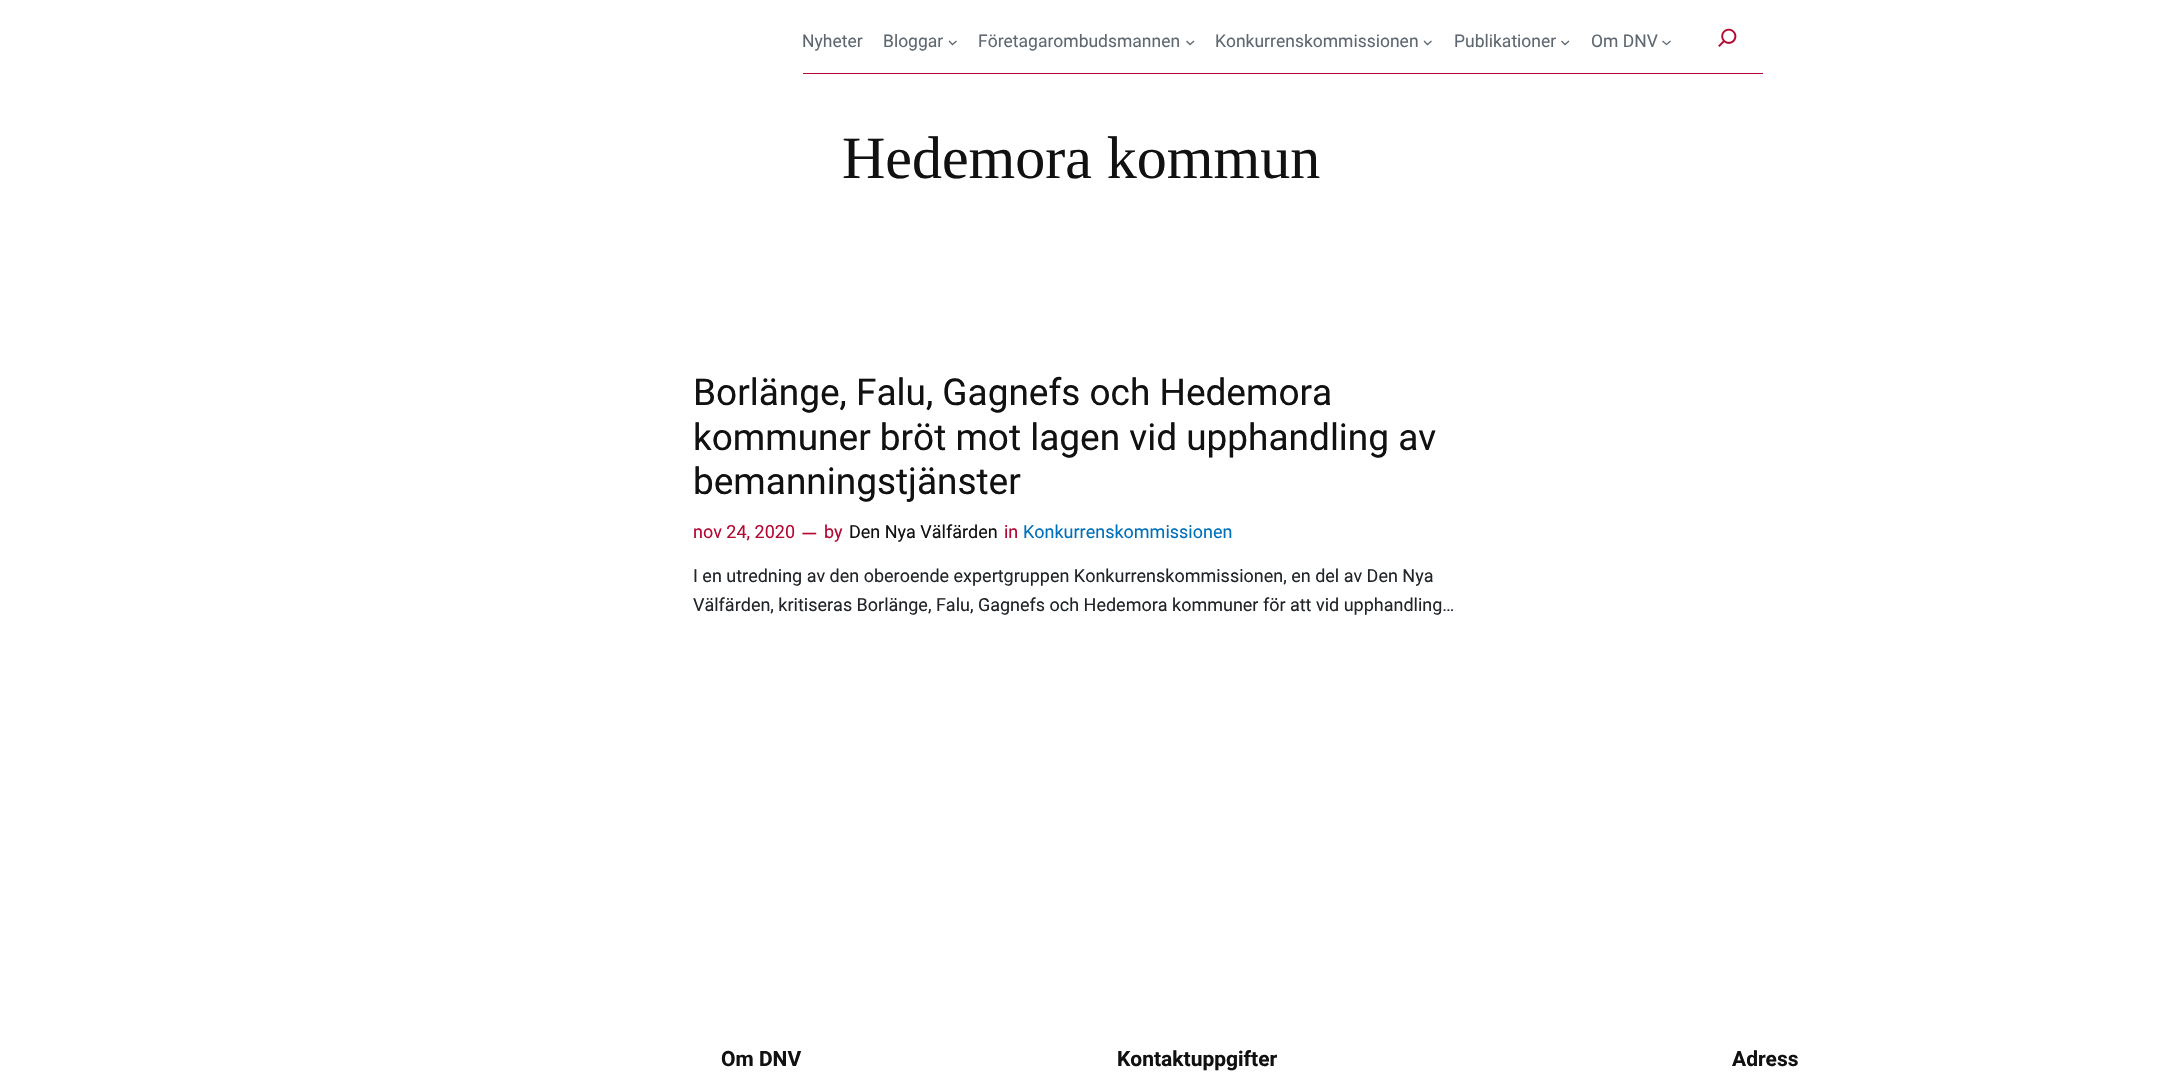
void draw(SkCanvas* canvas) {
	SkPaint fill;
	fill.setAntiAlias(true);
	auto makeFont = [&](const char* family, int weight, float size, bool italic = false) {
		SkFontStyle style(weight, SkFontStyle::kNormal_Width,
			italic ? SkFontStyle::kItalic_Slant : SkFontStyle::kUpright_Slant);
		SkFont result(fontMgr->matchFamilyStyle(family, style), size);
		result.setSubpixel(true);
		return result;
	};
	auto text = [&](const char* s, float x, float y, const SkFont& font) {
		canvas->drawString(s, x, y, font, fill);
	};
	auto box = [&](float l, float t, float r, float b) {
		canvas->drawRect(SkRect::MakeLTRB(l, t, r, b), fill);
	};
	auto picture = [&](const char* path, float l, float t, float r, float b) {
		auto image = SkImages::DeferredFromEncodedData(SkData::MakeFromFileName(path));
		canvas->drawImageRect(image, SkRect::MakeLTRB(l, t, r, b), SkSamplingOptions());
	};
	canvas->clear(0xFFFFFFFF);
	fill.setColor(0xFFB30933);
	box(803, 73, 1763, 74);
	fill.setStyle(SkPaint::kStroke_Style);
	fill.setStrokeWidth(1.3f);
	fill.setColor(0xFF5F6871);
	canvas->drawPath(SkPathBuilder().moveTo(949, 41).lineTo(952.5f, 44.5f).lineTo(956.5f, 41).detach(), fill);
	canvas->drawPath(SkPathBuilder().moveTo(1186.5f, 41).lineTo(1190, 44.5f).lineTo(1194, 41).detach(), fill);
	canvas->drawPath(SkPathBuilder().moveTo(1424, 41).lineTo(1427.5f, 44.5f).lineTo(1431.5f, 41).detach(), fill);
	canvas->drawPath(SkPathBuilder().moveTo(1561.5f, 41).lineTo(1565, 44.5f).lineTo(1569, 41).detach(), fill);
	canvas->drawPath(SkPathBuilder().moveTo(1662.5f, 41).lineTo(1666.5f, 44.5f).lineTo(1670.5f, 41).detach(), fill);
	picture("image0.png", 1718, 28, 1737, 47);
	auto font1 = makeFont("Roboto", 400, 17.5f);
	fill.setStyle(SkPaint::kFill_Style);
	text("Nyheter", 802, 47, font1);
	text("Bloggar", 883, 47, font1);
	text("Företagarombudsmannen", 978, 47, font1);
	text("Konkurrenskommissionen", 1215, 47, font1);
	text("Publikationer", 1454, 47, font1);
	text("Om DNV", 1591, 47, font1);
	auto font2 = makeFont("Liberation Serif", 400, 60);
	fill.setColor(0xFF111111);
	text("Hedemora kommun", 842, 178, font2);
	auto font3 = makeFont("Roboto", 400, 37);
	text("Borlänge, Falu, Gagnefs och Hedemora", 693, 405, font3);
	text("kommuner bröt mot lagen vid upphandling av", 693, 450, font3);
	text("bemanningstjänster", 693, 494, font3);
	auto font4 = makeFont("Roboto", 400, 18);
	fill.setColor(0xFFB30933);
	text("nov 24, 2020", 693, 538, font4);
	auto font5 = makeFont("Roboto", 400, 21);
	text("—", 801, 541, font5);
	text("by", 824, 538, font4);
	fill.setColor(0xFF111111);
	text("Den Nya Välfärden", 849, 538, font4);
	fill.setColor(0xFFB30933);
	text("in", 1004, 538, font4);
	fill.setColor(0xFF0070BA);
	text("Konkurrenskommissionen", 1023, 538, font4);
	fill.setColor(0xFF212529);
	text("I en utredning av den oberoende expertgruppen Konkurrenskommissionen, en del av Den Nya", 693, 582, font4);
	text("Välfärden, kritiseras Borlänge, Falu, Gagnefs och Hedemora kommuner för att vid upphandling…", 693, 611, font4);
	auto font6 = makeFont("Roboto", 700, 21);
	fill.setColor(0xFF111111);
	text("Om DNV", 721, 1066, font6);
	text("Kontaktuppgifter", 1117, 1066, font6);
	text("Adress", 1732, 1066, font6);
}
